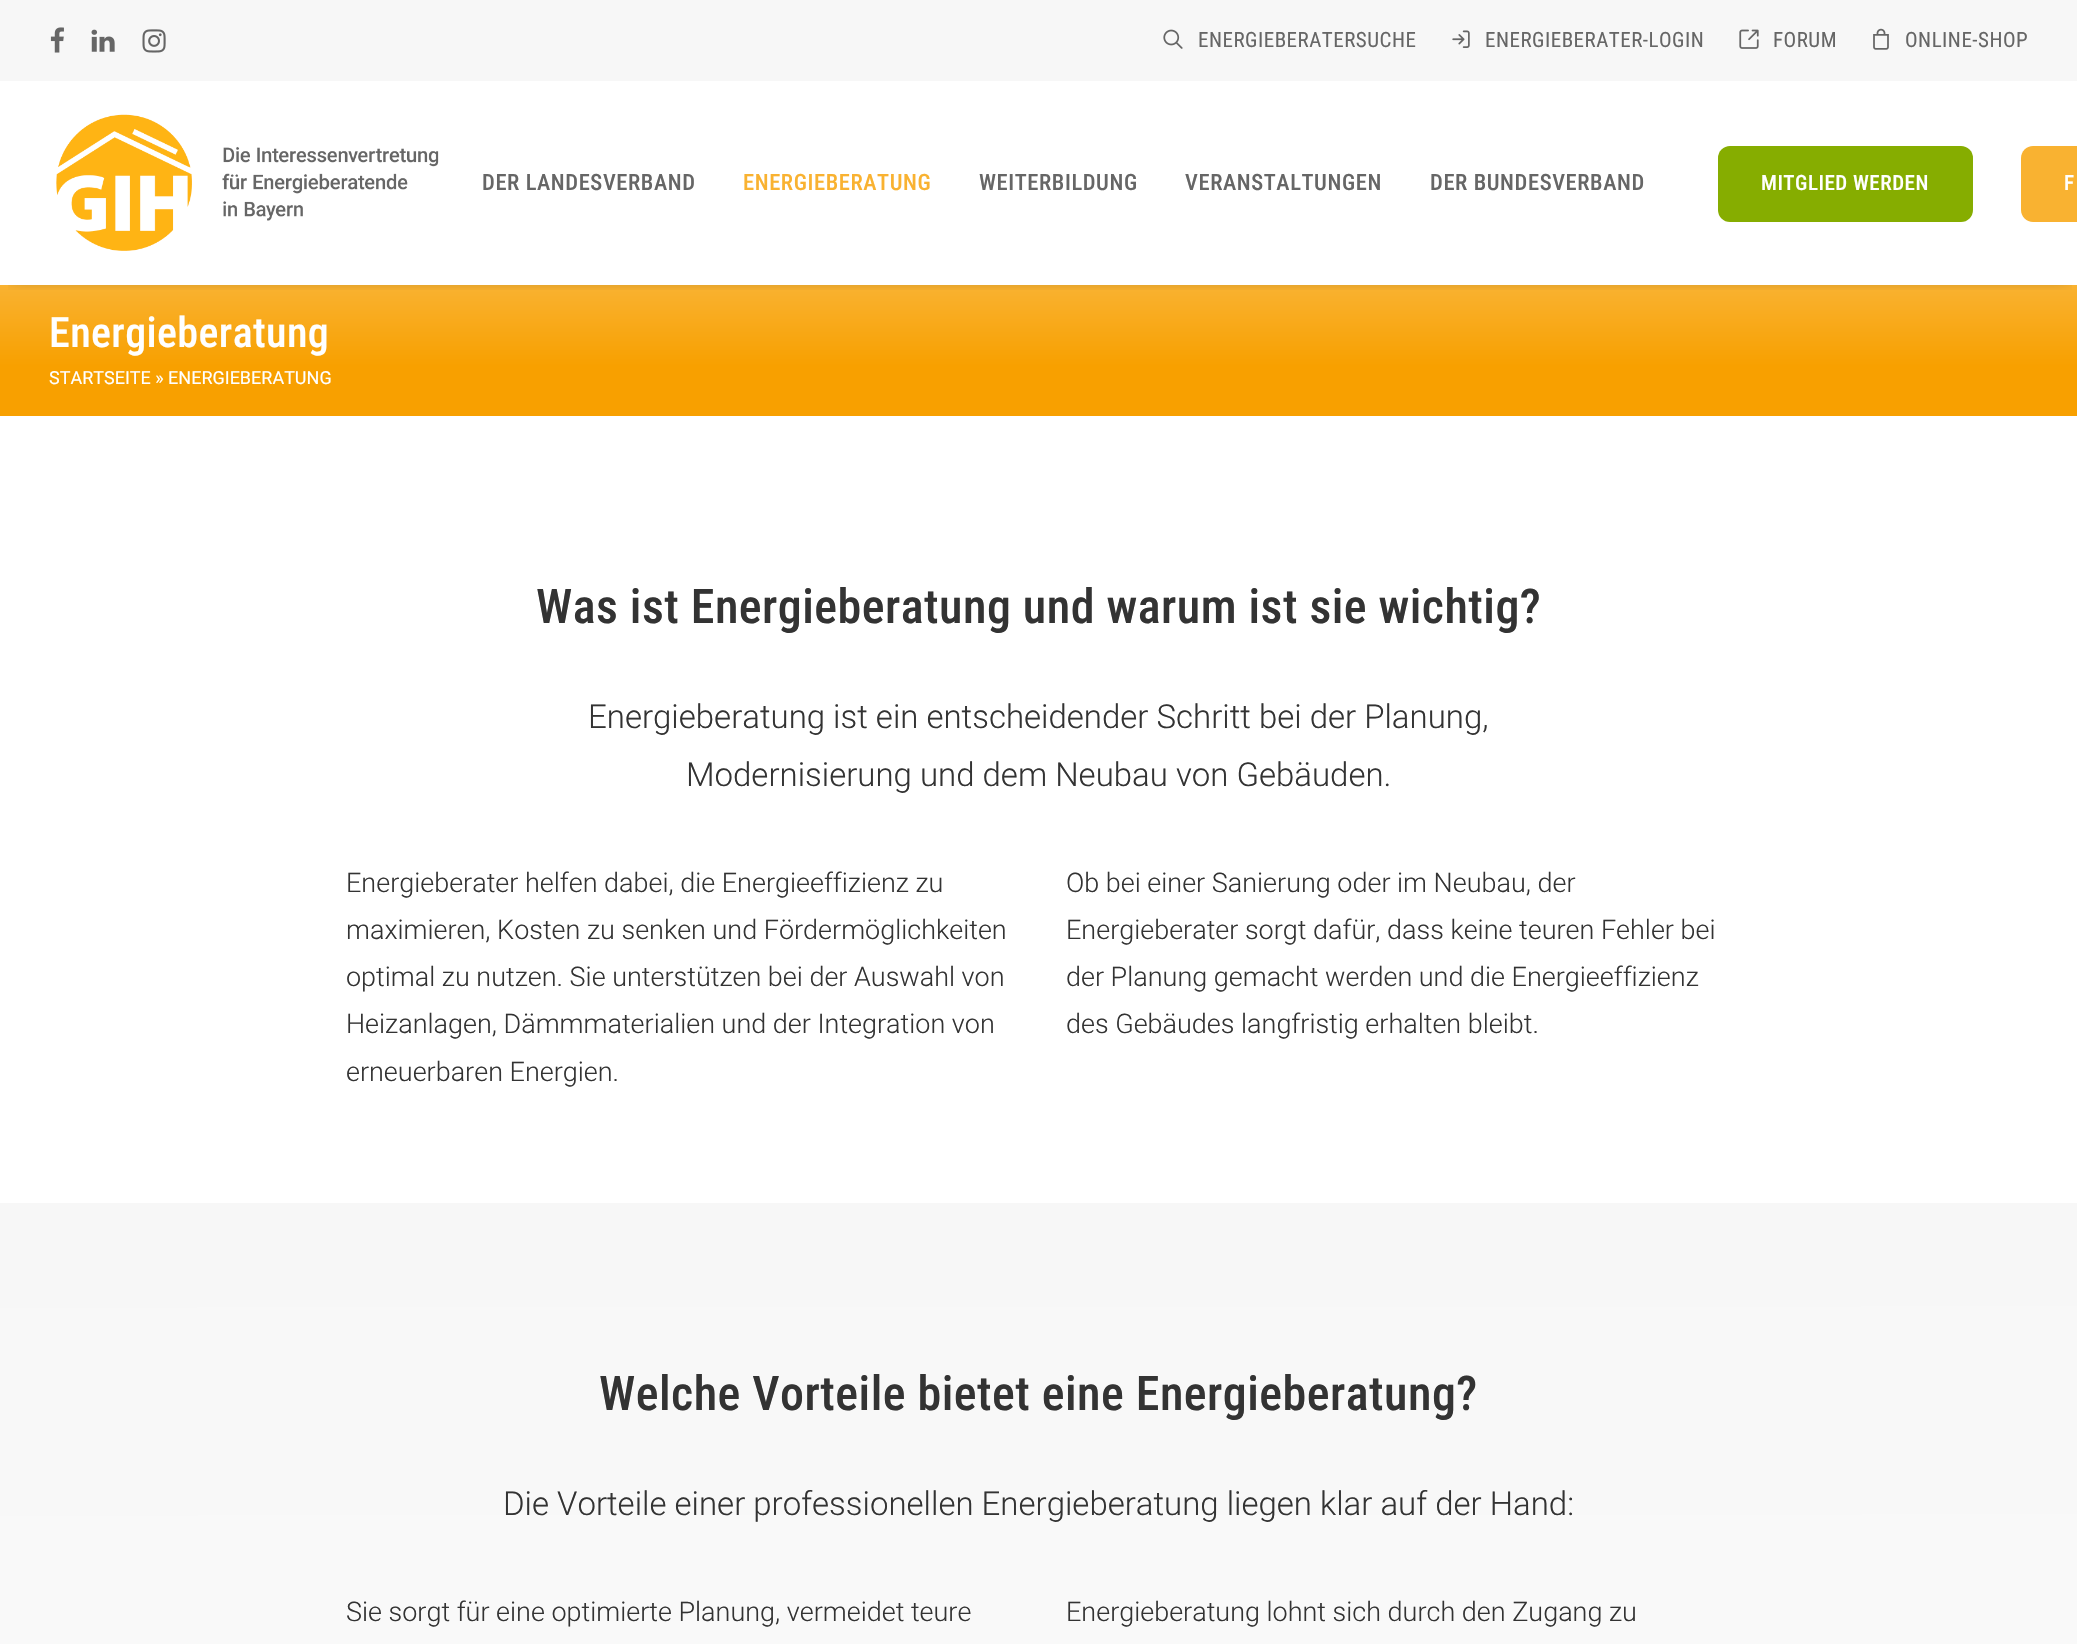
void draw(SkCanvas* canvas) {
	SkPaint fill;
	fill.setAntiAlias(true);
	auto makeFont = [&](const char* family, int weight, float size, bool italic = false) {
		SkFontStyle style(weight, SkFontStyle::kNormal_Width,
			italic ? SkFontStyle::kItalic_Slant : SkFontStyle::kUpright_Slant);
		SkFont result(fontMgr->matchFamilyStyle(family, style), size);
		result.setSubpixel(true);
		return result;
	};
	auto text = [&](const char* s, float x, float y, const SkFont& font) {
		canvas->drawString(s, x, y, font, fill);
	};
	auto spacedText = [&](const char* s, float x, float y, const SkFont& font, const SkPaint& ink, float letter, float word) {
		std::vector<SkGlyphID> glyphs(font.countText(s, strlen(s), SkTextEncoding::kUTF8));
		std::vector<float> xs(glyphs.size());
		font.textToGlyphs(s, strlen(s), SkTextEncoding::kUTF8, glyphs);
		font.getXPos(glyphs, xs, x);
		float extra = 0;
		for (size_t i = 0; i < glyphs.size(); i++) {
			xs[i] += extra;
			extra += letter + word * (glyphs[i] == font.unicharToGlyph(' '));
		}
		canvas->drawTextBlob(SkTextBlob::MakeFromPosHGlyphs(glyphs, xs, y, font), 0, 0, ink);
	};
	auto box = [&](float l, float t, float r, float b) {
		canvas->drawRect(SkRect::MakeLTRB(l, t, r, b), fill);
	};
	auto roundBox = [&](float l, float t, float r, float b, float radius) {
		canvas->drawRoundRect(SkRect::MakeLTRB(l, t, r, b), radius, radius, fill);
	};
	auto picture = [&](const char* path, float l, float t, float r, float b) {
		auto image = SkImages::DeferredFromEncodedData(SkData::MakeFromFileName(path));
		canvas->drawImageRect(image, SkRect::MakeLTRB(l, t, r, b), SkSamplingOptions());
	};
	canvas->clear(0xFFFFFFFF);
	{
		const SkColor colors[] = {0xFFF9B231, 0xFFF8A000};
		const float stops[] = {0, 0.62f};
		const SkPoint ends[] = {{1040, 285}, {1040, 416}};
		fill.setShader(SkGradientShader::MakeLinear(ends, colors, stops, 2, SkTileMode::kClamp));
		fill.setAlpha(255);
	}
	box(0, 285, 2077, 416);
	canvas->save();
	canvas->clipRect(SkRect::MakeLTRB(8, 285, 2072, 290));
	fill.setShader(nullptr);
	fill.setColor(0x99000000);
	fill.setMaskFilter(SkMaskFilter::MakeBlur(kNormal_SkBlurStyle, 7.5f));
	canvas->drawRect(SkRect::MakeLTRB(11, 102, 2069, 276), fill);
	fill.setMaskFilter(nullptr);
	canvas->restore();
	fill.setColor(0xFFF7F7F7);
	box(0, 0, 2077, 81);
	picture("image0.png", 50, 27, 64, 53);
	picture("image1.png", 91, 29, 115, 52);
	picture("image2.png", 142, 29, 166, 53);
	picture("image3.png", 1163, 29, 1183, 49);
	picture("image4.png", 1452, 30, 1470, 48);
	picture("image5.png", 1739, 29, 1759, 49);
	picture("image6.png", 1873, 28, 1889, 50);
	picture("image7.png", 56, 114, 439, 251);
	fill.setColor(0xFF86AD00);
	roundBox(1718, 146, 1973, 222, 12);
	fill.setColor(0xFFF9B231);
	canvas->drawPath(SkPathBuilder().moveTo(2033, 146).lineTo(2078, 146).lineTo(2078, 222).lineTo(2033, 222).cubicTo(2026.5f, 222, 2021, 216.5f, 2021, 210).lineTo(2021, 158).cubicTo(2021, 151.5f, 2026.5f, 146, 2033, 146).close().detach(), fill);
	{
		const SkColor colors[] = {0xFFF7F7F7, 0xFFFFFFFF};
		const float stops[] = {0, 1};
		const SkPoint ends[] = {{1039, 1203}, {1040, 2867}};
		fill.setShader(SkGradientShader::MakeLinear(ends, colors, stops, 2, SkTileMode::kClamp));
		fill.setAlpha(255);
	}
	box(0, 1203, 2077, 1644);
	auto font1 = makeFont("Roboto Condensed", 400, 21);
	fill.setShader(nullptr);
	fill.setColor(0xFF666666);
	spacedText("ENERGIEBERATERSUCHE", 1198, 47, font1, fill, 0.5f, 0);
	spacedText("ENERGIEBERATER-LOGIN", 1485, 47, font1, fill, 0.5f, 0);
	spacedText("FORUM", 1773, 47, font1, fill, 0.5f, 0);
	spacedText("ONLINE-SHOP", 1905, 47, font1, fill, 0.5f, 0);
	auto font2 = makeFont("Roboto Condensed", 500, 22.5f);
	spacedText("DER LANDESVERBAND", 482, 190, font2, fill, 0.6f, 0);
	fill.setColor(0xFFF9B231);
	spacedText("ENERGIEBERATUNG", 743, 190, font2, fill, 0.6f, 0);
	fill.setColor(0xFF666666);
	spacedText("WEITERBILDUNG", 979, 190, font2, fill, 0.6f, 0);
	spacedText("VERANSTALTUNGEN", 1185, 190, font2, fill, 0.6f, 0);
	spacedText("DER BUNDESVERBAND", 1430, 190, font2, fill, 0.6f, 0);
	auto font3 = makeFont("Roboto Condensed", 500, 21);
	fill.setColor(0xFFFFFFFF);
	spacedText("MITGLIED WERDEN", 1761, 190, font3, fill, 0.5f, 0);
	spacedText("F", 2064, 190, font3, fill, 0.5f, 0);
	auto font4 = makeFont("Roboto Condensed", 500, 42);
	spacedText("Energieberatung", 49, 347, font4, fill, 0.4f, 0);
	auto font5 = makeFont("Roboto", 400, 18);
	text("STARTSEITE » ENERGIEBERATUNG", 49, 384, font5);
	auto font6 = makeFont("Roboto Condensed", 500, 48);
	fill.setColor(0xFF333333);
	spacedText("Was ist Energieberatung und warum ist sie wichtig?", 536, 623, font6, fill, 0.48f, 0);
	auto font7 = makeFont("Roboto", 300, 33);
	text("Energieberatung ist ein entscheidender Schritt bei der Planung,", 588, 728, font7);
	text("Modernisierung und dem Neubau von Gebäuden.", 686, 786, font7);
	auto font8 = makeFont("Roboto", 300, 27);
	text("Energieberater helfen dabei, die Energieeffizienz zu", 346, 892, font8);
	text("maximieren, Kosten zu senken und Fördermöglichkeiten", 346, 939, font8);
	text("optimal zu nutzen. Sie unterstützen bei der Auswahl von", 346, 986, font8);
	text("Heizanlagen, Dämmmaterialien und der Integration von", 346, 1033, font8);
	text("erneuerbaren Energien.", 346, 1081, font8);
	text("Ob bei einer Sanierung oder im Neubau, der", 1066, 892, font8);
	text("Energieberater sorgt dafür, dass keine teuren Fehler bei", 1066, 939, font8);
	text("der Planung gemacht werden und die Energieeffizienz", 1066, 986, font8);
	text("des Gebäudes langfristig erhalten bleibt.", 1066, 1033, font8);
	spacedText("Welche Vorteile bietet eine Energieberatung?", 599, 1410, font6, fill, 0.48f, 0);
	text("Die Vorteile einer professionellen Energieberatung liegen klar auf der Hand:", 503, 1515, font7);
	text("Sie sorgt für eine optimierte Planung, vermeidet teure", 346, 1621, font8);
	text("Energieberatung lohnt sich durch den Zugang zu", 1066, 1621, font8);
}
